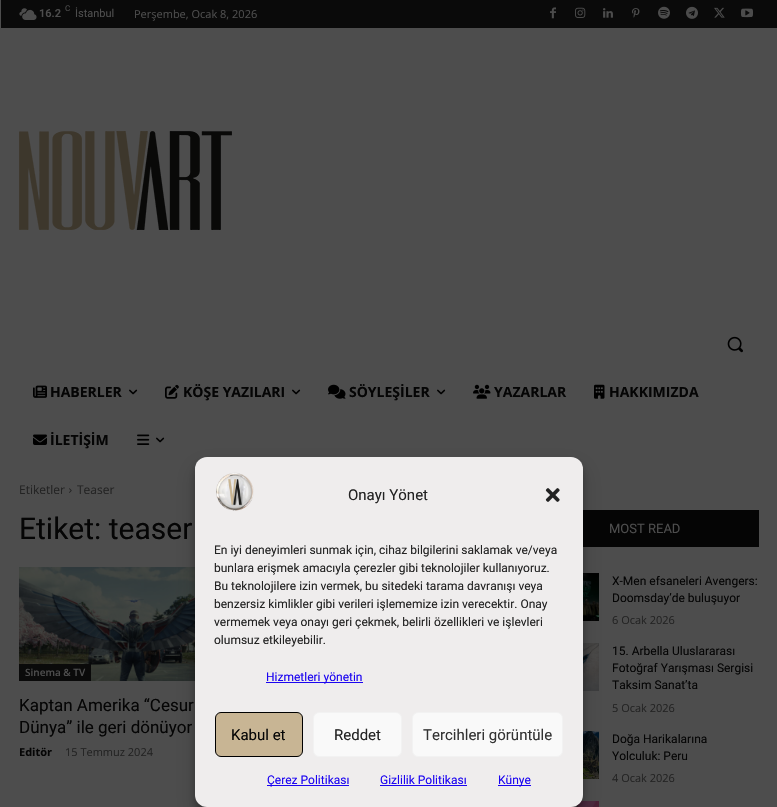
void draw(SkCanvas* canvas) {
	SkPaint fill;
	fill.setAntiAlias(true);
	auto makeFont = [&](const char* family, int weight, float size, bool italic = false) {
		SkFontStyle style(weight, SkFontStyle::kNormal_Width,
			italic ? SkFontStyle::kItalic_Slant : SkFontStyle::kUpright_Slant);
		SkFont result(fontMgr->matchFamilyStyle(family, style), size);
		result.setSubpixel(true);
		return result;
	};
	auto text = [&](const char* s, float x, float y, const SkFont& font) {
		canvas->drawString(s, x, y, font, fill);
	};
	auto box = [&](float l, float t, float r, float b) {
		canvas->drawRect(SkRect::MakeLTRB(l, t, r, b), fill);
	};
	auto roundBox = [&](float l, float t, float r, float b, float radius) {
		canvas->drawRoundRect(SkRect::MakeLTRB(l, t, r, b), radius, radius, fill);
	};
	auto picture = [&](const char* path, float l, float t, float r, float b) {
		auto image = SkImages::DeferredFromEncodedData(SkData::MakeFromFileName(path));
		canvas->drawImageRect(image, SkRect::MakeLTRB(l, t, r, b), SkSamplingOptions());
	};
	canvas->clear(0xFF4D4D4D);
	fill.setColor(0xFF0A0A0A);
	box(1, 0, 777, 28);
	picture("image0.png", 19, 8, 37, 20);
	picture("image1.png", 550, 7, 556, 19);
	picture("image2.png", 575, 7, 586, 18);
	picture("image3.png", 603, 8, 613, 18);
	picture("image4.png", 632, 8, 640, 18);
	picture("image5.png", 658, 6, 670, 19);
	picture("image6.png", 686, 6, 698, 19);
	picture("image7.png", 714, 7, 725, 18);
	picture("image8.png", 741, 8, 753, 18);
	picture("image9.png", 19, 131, 232, 230);
	picture("image10.png", 727, 336, 743, 353);
	picture("image11.png", 33, 385, 47, 398);
	picture("image12.png", 129, 389, 138, 395);
	picture("image13.png", 165, 384, 179, 399);
	picture("image12.png", 292, 389, 301, 395);
	picture("image14.png", 328, 384, 346, 399);
	picture("image12.png", 437, 389, 446, 395);
	picture("image15.png", 473, 384, 491, 399);
	picture("image16.png", 594, 384, 605, 399);
	picture("image17.png", 33, 434, 47, 445);
	picture("image18.png", 137, 434, 150, 445);
	picture("image12.png", 156, 437, 165, 443);
	picture("image19.png", 69, 488, 72, 493);
	picture("image20.png", 19, 567, 195, 681);
	box(19, 664, 91, 681);
	fill.setColor(0xFF050505);
	box(583, 510, 759, 547);
	picture("image21.png", 583, 573, 599, 621);
	picture("image22.png", 583, 643, 599, 691);
	picture("image23.png", 583, 731, 599, 779);
	picture("image24.png", 571, 801, 599, 807);
	fill.setColor(0x3B000000);
	fill.setMaskFilter(SkMaskFilter::MakeBlur(kNormal_SkBlurStyle, 3));
	canvas->drawRoundRect(SkRect::MakeLTRB(195, 463, 583, 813), 12, 12, fill);
	fill.setMaskFilter(nullptr);
	fill.setColor(0x30000000);
	fill.setMaskFilter(SkMaskFilter::MakeBlur(kNormal_SkBlurStyle, 10));
	canvas->drawRoundRect(SkRect::MakeLTRB(195, 467, 583, 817), 12, 12, fill);
	fill.setMaskFilter(nullptr);
	fill.setColor(0xFFEFEDED);
	roundBox(195, 457, 583, 807, 12);
	picture("image25.png", 216, 472, 254, 511);
	picture("image26.png", 545, 488, 560, 502);
	fill.setColor(0xFF1C05F1);
	box(266, 682, 363, 683);
	fill.setColor(0xFFC8B594);
	canvas->drawRoundRect(SkRect::MakeLTRB(215.5f, 712.5f, 302.5f, 756.5f), 5.5f, 5.5f, fill);
	fill.setStyle(SkPaint::kStroke_Style);
	fill.setStrokeWidth(1);
	fill.setColor(0xFF000000);
	canvas->drawRoundRect(SkRect::MakeLTRB(215.5f, 712.5f, 302.5f, 756.5f), 5.5f, 5.5f, fill);
	fill.setStyle(SkPaint::kFill_Style);
	fill.setColor(0xFFF9F9F9);
	canvas->drawRoundRect(SkRect::MakeLTRB(313.5f, 712.5f, 401.5f, 756.5f), 5.5f, 5.5f, fill);
	fill.setStyle(SkPaint::kStroke_Style);
	fill.setColor(0xFFF2F2F2);
	canvas->drawRoundRect(SkRect::MakeLTRB(313.5f, 712.5f, 401.5f, 756.5f), 5.5f, 5.5f, fill);
	fill.setStyle(SkPaint::kFill_Style);
	fill.setColor(0xFFF9F9F9);
	canvas->drawRoundRect(SkRect::MakeLTRB(412.5f, 712.5f, 562.5f, 756.5f), 5.5f, 5.5f, fill);
	fill.setStyle(SkPaint::kStroke_Style);
	fill.setColor(0xFFF2F2F2);
	canvas->drawRoundRect(SkRect::MakeLTRB(412.5f, 712.5f, 562.5f, 756.5f), 5.5f, 5.5f, fill);
	fill.setStyle(SkPaint::kFill_Style);
	fill.setColor(0xFF1C05F1);
	box(267, 785, 349, 786);
	box(380, 785, 467, 786);
	box(498, 785, 531, 786);
	auto font1 = makeFont("Roboto", 600, 11);
	fill.setColor(0xFF4D4D4D);
	text("16.2", 39, 17, font1);
	auto font2 = makeFont("Roboto", 400, 8);
	text("C", 65, 11, font2);
	auto font3 = makeFont("Roboto", 400, 11);
	text("İstanbul", 75, 17, font3);
	auto font4 = makeFont("Open Sans", 400, 11);
	text("Perşembe, Ocak 8, 2026", 134, 18, font4);
	auto font5 = makeFont("Open Sans", 700, 14);
	fill.setColor(0xFF050505);
	text("HABERLER", 50, 397, font5);
	text("KÖŞE YAZILARI", 183, 397, font5);
	text("SÖYLEŞİLER", 349, 397, font5);
	text("YAZARLAR", 494, 397, font5);
	text("HAKKIMIZDA", 609, 397, font5);
	text("İLETİŞİM", 50, 445, font5);
	auto font6 = makeFont("Open Sans", 400, 12);
	fill.setColor(0xFF232323);
	text("Etiketler", 19, 494, font6);
	text("Teaser", 77, 494, font6);
	auto font7 = makeFont("Roboto", 400, 30);
	fill.setColor(0xFF050505);
	text("Etiket: teaser", 19, 539, font7);
	auto font8 = makeFont("Open Sans", 600, 10);
	fill.setColor(0xFF4D4D4D);
	text("Sinema & TV", 25, 676, font8);
	auto font9 = makeFont("Roboto", 400, 17);
	fill.setColor(0xFF050505);
	text("Kaptan Amerika “Cesur", 19, 711, font9);
	text("Dünya” ile geri dönüyor", 19, 733, font9);
	auto font10 = makeFont("Open Sans", 700, 11);
	text("Editör", 19, 756, font10);
	fill.setColor(0xFF232323);
	text("15 Temmuz 2024", 65, 756, font4);
	auto font11 = makeFont("Roboto", 400, 13);
	fill.setColor(0xFF4D4D4D);
	text("MOST READ", 609, 533, font11);
	auto font12 = makeFont("Roboto", 400, 12);
	fill.setColor(0xFF050505);
	text("X-Men efsaneleri Avengers:", 612, 585, font12);
	text("Doomsday’de buluşuyor", 612, 602, font12);
	fill.setColor(0xFF232323);
	text("6 Ocak 2026", 612, 624, font4);
	fill.setColor(0xFF050505);
	text("15. Arbella Uluslararası", 612, 655, font12);
	text("Fotoğraf Yarışması Sergisi", 612, 672, font12);
	text("Taksim Sanat’ta", 612, 689, font12);
	fill.setColor(0xFF232323);
	text("5 Ocak 2026", 612, 712, font4);
	fill.setColor(0xFF050505);
	text("Doğa Harikalarına", 612, 743, font12);
	text("Yolculuk: Peru", 612, 760, font12);
	fill.setColor(0xFF232323);
	text("4 Ocak 2026", 612, 782, font4);
	auto font13 = makeFont("Roboto", 400, 15);
	text("Onayı Yönet", 348, 500, font13);
	text("En iyi deneyimleri sunmak için, cihaz bilgilerini saklamak ve/veya", 214, 554, font12);
	text("bunlara erişmek amacıyla çerezler gibi teknolojiler kullanıyoruz.", 214, 572, font12);
	text("Bu teknolojilere izin vermek, bu sitedeki tarama davranışı veya", 214, 590, font12);
	text("benzersiz kimlikler gibi verileri işlememize izin verecektir. Onay", 214, 608, font12);
	text("vermemek veya onayı geri çekmek, belirli özellikleri ve işlevleri", 214, 626, font12);
	text("olumsuz etkileyebilir.", 214, 644, font12);
	fill.setColor(0xFF1C05F1);
	text("Hizmetleri yönetin", 266, 681, font12);
	fill.setColor(0xFF050505);
	text("Kabul et", 231, 740, font13);
	fill.setColor(0xFF232323);
	text("Reddet", 334, 740, font13);
	fill.setColor(0xFF333333);
	text("Tercihleri görüntüle", 423, 740, font13);
	fill.setColor(0xFF1C05F1);
	text("Çerez Politikası", 267, 784, font12);
	text("Gizlilik Politikası", 380, 784, font12);
	text("Künye", 498, 784, font12);
}
